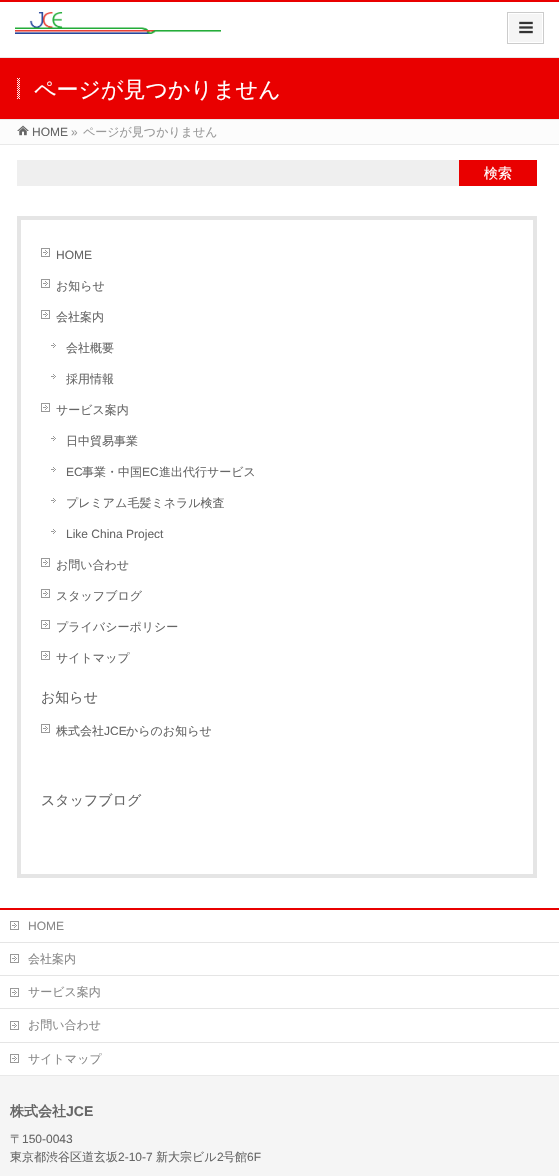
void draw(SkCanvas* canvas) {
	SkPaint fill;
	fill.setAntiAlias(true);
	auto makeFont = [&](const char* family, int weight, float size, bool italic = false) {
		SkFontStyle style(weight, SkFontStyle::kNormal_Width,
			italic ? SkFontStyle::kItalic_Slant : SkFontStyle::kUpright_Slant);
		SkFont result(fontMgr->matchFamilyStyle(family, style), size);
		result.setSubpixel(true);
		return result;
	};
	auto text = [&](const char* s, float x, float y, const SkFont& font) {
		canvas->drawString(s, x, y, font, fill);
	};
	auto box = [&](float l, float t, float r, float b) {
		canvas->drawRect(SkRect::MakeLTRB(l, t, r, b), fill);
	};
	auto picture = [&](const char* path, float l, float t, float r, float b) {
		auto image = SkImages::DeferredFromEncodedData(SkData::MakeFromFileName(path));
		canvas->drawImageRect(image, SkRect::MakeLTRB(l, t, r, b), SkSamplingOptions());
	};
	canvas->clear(0xFFFFFFFF);
	fill.setColor(0xFFE90000);
	box(0, 0, 559, 2);
	picture("image0.png", 15, 12, 221, 34);
	fill.setColor(0xFFF5F5F5);
	box(509, 14, 542, 42);
	fill.setStyle(SkPaint::kStroke_Style);
	fill.setStrokeWidth(1);
	fill.setColor(0xFFCCCCCC);
	canvas->drawRect(SkRect::MakeLTRB(507.5f, 12.5f, 543.5f, 43.5f), fill);
	picture("image1.png", 519, 21, 533, 34);
	fill.setStyle(SkPaint::kFill_Style);
	fill.setColor(0xFFE90000);
	box(0, 58, 559, 119);
	fill.setColor(0xFFE9E9E9);
	box(0, 57, 559, 58);
	box(0, 119, 559, 120);
	picture("image2.png", 17, 78, 20, 99);
	fill.setColor(0xFFFCFCFC);
	box(0, 120, 559, 144);
	picture("image3.png", 17, 125, 29, 136);
	fill.setColor(0xFFE9E9E9);
	box(0, 144, 559, 145);
	fill.setColor(0xFFEFEFEF);
	box(17, 160, 459, 186);
	fill.setColor(0xFFE90000);
	box(459, 160, 537, 186);
	fill.setStyle(SkPaint::kStroke_Style);
	fill.setStrokeWidth(4);
	fill.setColor(0xFFE5E5E5);
	canvas->drawRect(SkRect::MakeLTRB(19, 218, 535, 876), fill);
	picture("image4.png", 41, 248, 50, 257);
	picture("image4.png", 41, 279, 50, 288);
	picture("image4.png", 41, 310, 50, 319);
	picture("image5.png", 51, 343, 56, 348);
	picture("image5.png", 51, 374, 56, 379);
	picture("image4.png", 41, 403, 50, 412);
	picture("image5.png", 51, 436, 56, 441);
	picture("image5.png", 51, 467, 56, 472);
	picture("image5.png", 51, 498, 56, 503);
	picture("image5.png", 51, 529, 56, 534);
	picture("image4.png", 41, 558, 50, 567);
	picture("image4.png", 41, 589, 50, 598);
	picture("image4.png", 41, 620, 50, 629);
	picture("image4.png", 41, 651, 50, 660);
	picture("image4.png", 41, 724, 50, 733);
	fill.setStyle(SkPaint::kFill_Style);
	fill.setColor(0xFFE90000);
	box(0, 908, 559, 910);
	fill.setColor(0xFFE9E9E9);
	box(0, 1075, 559, 1076);
	fill.setColor(0xFFE5E5E5);
	box(0, 942, 559, 943);
	picture("image4.png", 10, 921, 19, 930);
	box(0, 975, 559, 976);
	picture("image4.png", 10, 954, 19, 963);
	box(0, 1008, 559, 1009);
	picture("image4.png", 10, 988, 19, 997);
	box(0, 1042, 559, 1043);
	picture("image4.png", 10, 1021, 19, 1030);
	picture("image4.png", 10, 1054, 19, 1063);
	fill.setColor(0xFFF5F5F5);
	box(0, 1076, 559, 1176);
	auto font1 = makeFont("WenQuanYi Zen Hei", 500, 22);
	fill.setColor(0xFFFFFFFF);
	text("ページが見つかりません", 34, 97, font1);
	auto font2 = makeFont("Liberation Sans", 400, 12);
	fill.setColor(0xFF666666);
	text("HOME", 32, 136, font2);
	fill.setColor(0xFF999999);
	text("»", 71, 136, font2);
	auto font3 = makeFont("WenQuanYi Zen Hei", 500, 12);
	text("ページが見つかりません", 83, 136, font3);
	auto font4 = makeFont("WenQuanYi Zen Hei", 500, 14);
	fill.setColor(0xFFFFFFFF);
	text("検索", 484, 178, font4);
	fill.setColor(0xFF666666);
	text("HOME", 56, 259, font2);
	text("お知らせ", 56, 290, font3);
	text("会社案内", 56, 321, font3);
	text("会社概要", 66, 352, font3);
	text("採用情報", 66, 383, font3);
	text("サービス案内", 56, 414, font3);
	text("日中貿易事業", 66, 445, font3);
	text("EC", 66, 476, font2);
	text("事業・中国", 82, 476, font3);
	text("EC", 142, 476, font2);
	text("進出代行サービス", 159, 476, font3);
	text("プレミアム毛髪ミネラル検査", 66, 507, font3);
	text("Like China Project", 66, 538, font2);
	text("お問い合わせ", 56, 569, font3);
	text("スタッフブログ", 56, 600, font3);
	text("プライバシーポリシー", 56, 631, font3);
	text("サイトマップ", 56, 662, font3);
	text("お知らせ", 41, 702, font4);
	text("株式会社", 56, 735, font3);
	text("JCE", 104, 735, font2);
	text("からのお知らせ", 126, 735, font3);
	text("スタッフブログ", 41, 805, font4);
	fill.setColor(0xFF888888);
	text("HOME", 28, 930, font2);
	text("会社案内", 28, 963, font3);
	text("サービス案内", 28, 996, font3);
	text("お問い合わせ", 28, 1029, font3);
	text("サイトマップ", 28, 1063, font3);
	auto font5 = makeFont("WenQuanYi Zen Hei", 700, 14);
	fill.setColor(0xFF666666);
	text("株式会社", 10, 1116, font5);
	auto font6 = makeFont("Liberation Sans", 700, 14);
	text("JCE", 66, 1116, font6);
	text("〒", 10, 1143, font3);
	text("150-0043", 22, 1143, font2);
	text("東京都渋谷区道玄坂", 10, 1161, font3);
	text("2-10-7", 118, 1161, font2);
	text("新大宗ビル", 156, 1161, font3);
	text("2", 217, 1161, font2);
	text("号館", 223, 1161, font3);
	text("6F", 247, 1161, font2);
}
